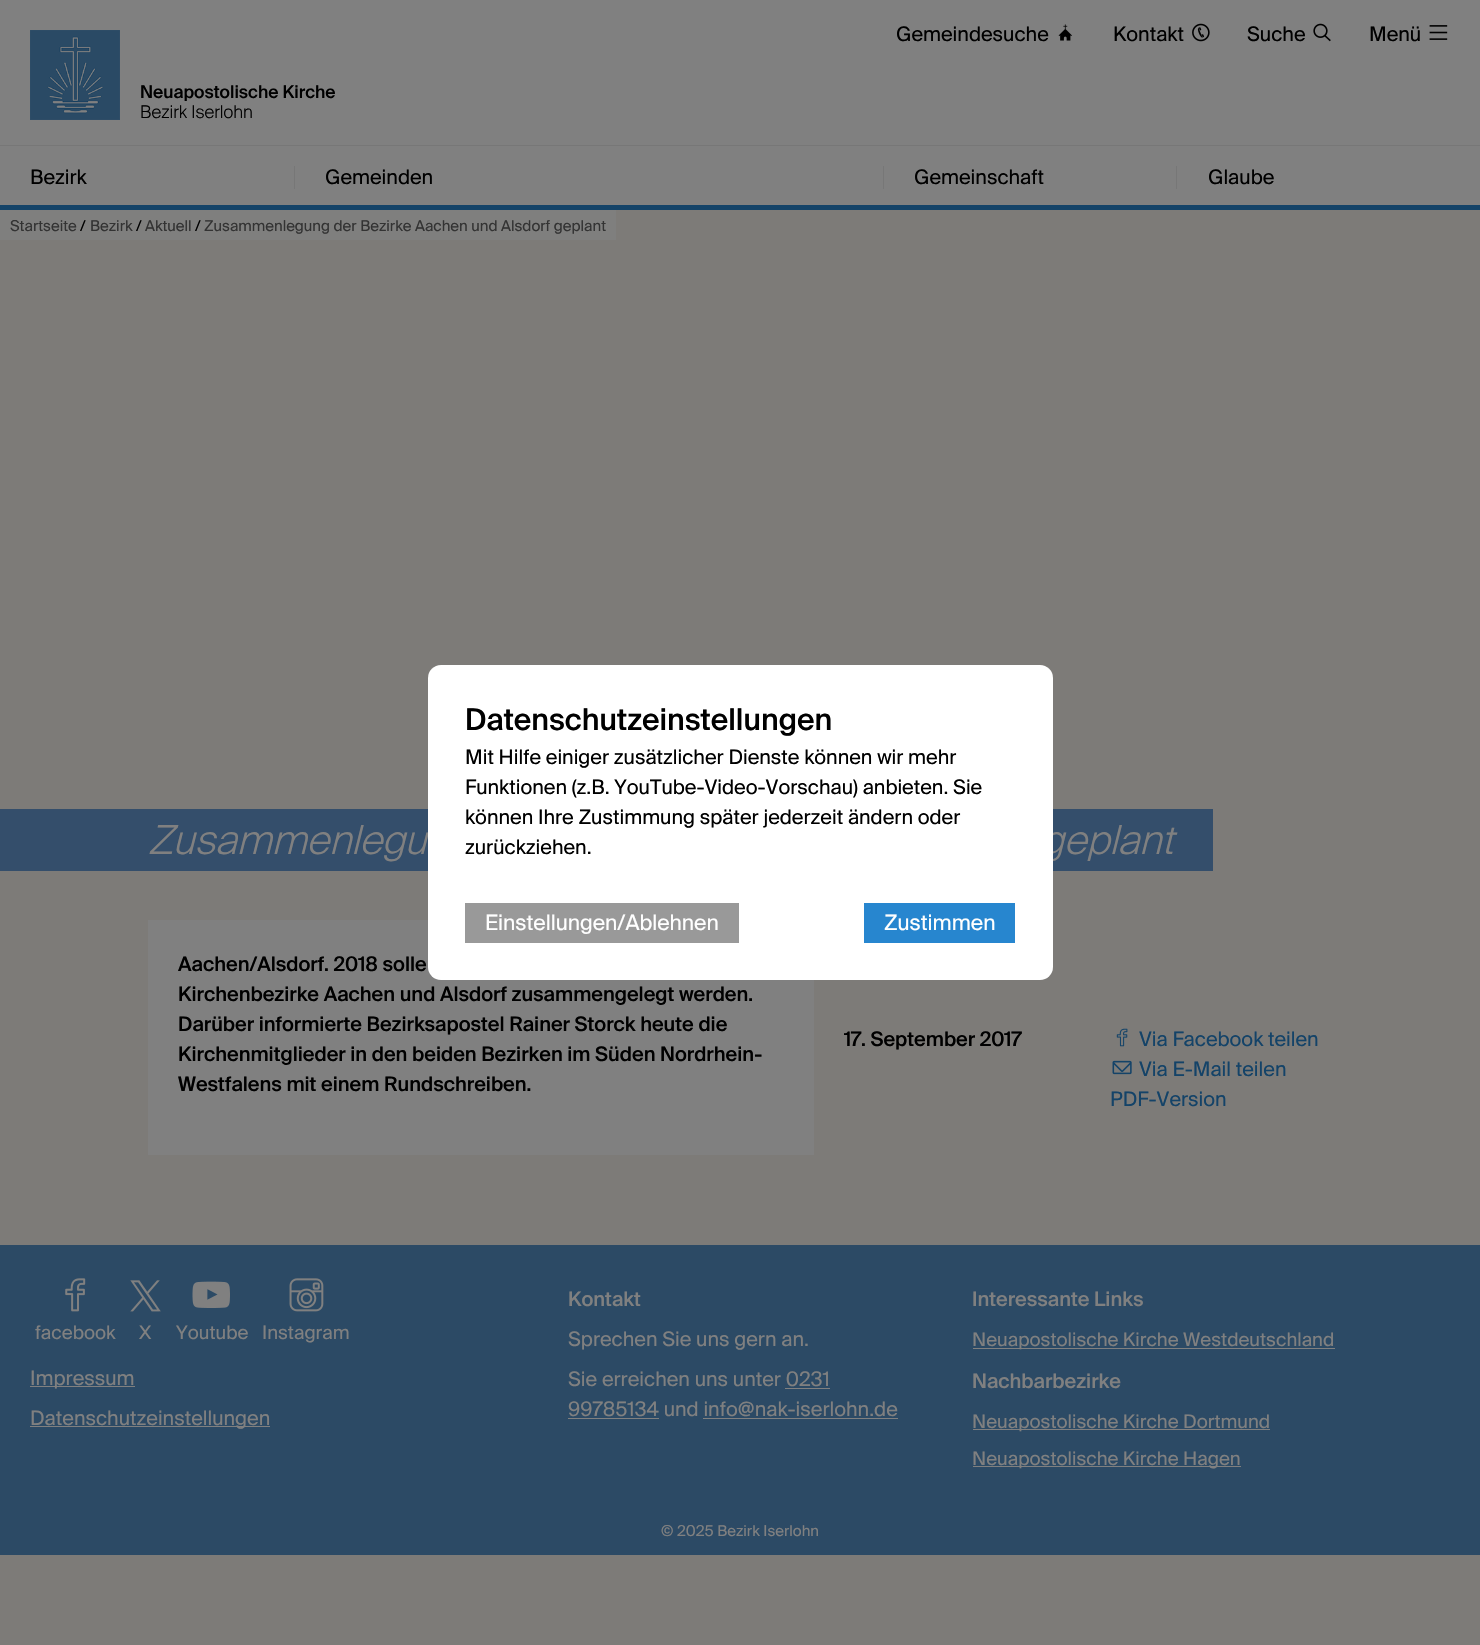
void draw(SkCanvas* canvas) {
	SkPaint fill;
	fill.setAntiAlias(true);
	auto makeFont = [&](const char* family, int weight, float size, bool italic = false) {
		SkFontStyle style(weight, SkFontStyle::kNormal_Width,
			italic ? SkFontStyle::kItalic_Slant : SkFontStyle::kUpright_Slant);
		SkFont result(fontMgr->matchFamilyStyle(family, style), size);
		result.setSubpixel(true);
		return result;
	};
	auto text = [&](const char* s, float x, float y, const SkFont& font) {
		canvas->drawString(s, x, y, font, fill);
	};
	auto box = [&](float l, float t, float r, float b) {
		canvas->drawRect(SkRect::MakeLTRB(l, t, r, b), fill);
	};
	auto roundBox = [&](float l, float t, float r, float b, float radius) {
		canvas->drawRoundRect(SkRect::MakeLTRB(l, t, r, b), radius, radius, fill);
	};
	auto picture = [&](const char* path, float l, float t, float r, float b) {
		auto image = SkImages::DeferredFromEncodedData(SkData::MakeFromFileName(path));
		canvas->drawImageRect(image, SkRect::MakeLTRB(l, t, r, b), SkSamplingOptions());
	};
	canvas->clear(0xFF7D7B78);
	fill.setColor(0xFF808080);
	box(0, 0, 1480, 205);
	fill.setColor(0xFF144368);
	box(0, 205, 1480, 210);
	picture("image0.png", 30, 30, 120, 120);
	picture("image1.png", 1058, 24, 1072, 41);
	picture("image2.png", 1192, 23, 1210, 42);
	picture("image3.png", 1313, 23, 1331, 42);
	picture("image4.png", 1429, 25, 1448, 40);
	fill.setColor(0xFF777777);
	box(0, 145, 1480, 146);
	box(294, 166, 295, 189);
	box(883, 166, 884, 189);
	box(1176, 166, 1177, 189);
	fill.setColor(0xFF7F7F7E);
	box(0, 210, 616, 240);
	fill.setColor(0xFF344E6B);
	box(0, 809, 1213, 871);
	fill.setColor(0xFF808080);
	box(148, 920, 814, 1155);
	picture("image5.png", 1116, 1028, 1128, 1047);
	picture("image6.png", 1112, 1060, 1132, 1075);
	fill.setColor(0xFF2C4A65);
	box(0, 1245, 1480, 1555);
	picture("image7.png", 65, 1278, 86, 1312);
	picture("image8.png", 130, 1280, 161, 1312);
	picture("image9.png", 192, 1281, 230, 1308);
	picture("image10.png", 289, 1278, 324, 1312);
	fill.setColor(0xFF808080);
	box(30, 1386, 135, 1387);
	box(30, 1426, 270, 1427);
	box(785, 1388, 830, 1389);
	box(568, 1418, 659, 1419);
	box(703, 1418, 898, 1419);
	box(973, 1348, 1335, 1349);
	box(973, 1429, 1270, 1430);
	box(973, 1466, 1241, 1467);
	auto font1 = makeFont("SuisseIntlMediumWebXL", 500, 17.5f);
	fill.setColor(0xFF000000);
	text("Neuapostolische Kirche", 140, 98, font1);
	auto font2 = makeFont("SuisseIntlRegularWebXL", 400, 20);
	text("Gemeindesuche", 896, 41, font2);
	text("Kontakt", 1113, 41, font2);
	text("Suche", 1247, 41, font2);
	text("Menü", 1369, 41, font2);
	auto font3 = makeFont("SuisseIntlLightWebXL", 300, 17.5f);
	text("Bezirk Iserlohn", 140, 118, font3);
	text("Bezirk", 30, 184, font2);
	text("Gemeinden", 325, 184, font2);
	text("Gemeinschaft", 914, 184, font2);
	text("Glaube", 1208, 184, font2);
	auto font4 = makeFont("SuisseIntlRegularWebXL", 400, 15);
	fill.setColor(0xFF333333);
	text("Startseite", 10, 231, font4);
	fill.setColor(0xFF000000);
	text("/", 80, 231, font4);
	fill.setColor(0xFF333333);
	text("Bezirk", 90, 231, font4);
	fill.setColor(0xFF000000);
	text("/", 136, 231, font4);
	fill.setColor(0xFF333333);
	text("Aktuell", 145, 231, font4);
	fill.setColor(0xFF000000);
	text("/", 195, 231, font4);
	fill.setColor(0xFF333333);
	text("Zusammenlegung der Bezirke Aachen und Alsdorf geplant", 204, 231, font4);
	auto font5 = makeFont("SuisseIntlLightWebXL", 300, 40, true);
	fill.setColor(0xFF808080);
	text("Zusammenlegu", 148, 854, font5);
	text("geplant", 1041, 854, font5);
	fill.setColor(0xFFFFFFFF);
	roundBox(428, 665, 1053, 980, 13);
	fill.setColor(0xFF2786CF);
	box(864, 903, 1015, 943);
	auto font6 = makeFont("SuisseIntlRegularWebXL", 400, 21.25f);
	fill.setColor(0xFFFFFFFF);
	text("Zustimmen", 884, 930, font6);
	fill.setColor(0xFF999999);
	box(465, 903, 739, 943);
	fill.setColor(0xFFFFFFFF);
	text("Einstellungen/Ablehnen", 485, 930, font6);
	fill.setColor(0xFF000000);
	text("zurückziehen.", 465, 854, font2);
	text("können Ihre Zustimmung später jederzeit ändern oder", 465, 824, font2);
	text("Funktionen (z.B. YouTube-Video-Vorschau) anbieten. Sie", 465, 794, font2);
	text("Mit Hilfe einiger zusätzlicher Dienste können wir mehr", 465, 764, font2);
	auto font7 = makeFont("SuisseIntlMediumWebXL", 500, 30);
	text("Datenschutzeinstellungen", 465, 730, font7);
	auto font8 = makeFont("SuisseIntlMediumWebXL", 500, 20);
	text("Aachen/Alsdorf. 2018 solle", 178, 971, font8);
	text("Kirchenbezirke Aachen und Alsdorf zusammengelegt werden.", 178, 1001, font8);
	text("Darüber informierte Bezirksapostel Rainer Storck heute die", 178, 1031, font8);
	text("Kirchenmitglieder in den beiden Bezirken im Süden Nordrhein-", 178, 1061, font8);
	text("Westfalens mit einem Rundschreiben.", 178, 1091, font8);
	text("17. September 2017", 844, 1046, font8);
	fill.setColor(0xFF144368);
	text("Via Facebook teilen", 1139, 1046, font2);
	text("Via E-Mail teilen", 1139, 1076, font2);
	text("PDF-Version", 1110, 1106, font2);
	auto font9 = makeFont("SuisseIntlRegularWebXL", 400, 18.75f);
	fill.setColor(0xFF808080);
	text("facebook", 35, 1339, font9);
	text("X", 139, 1339, font9);
	text("Youtube", 176, 1339, font9);
	text("Instagram", 262, 1339, font9);
	text("Impressum", 30, 1385, font2);
	text("Datenschutzeinstellungen", 30, 1425, font2);
	text("Kontakt", 568, 1306, font8);
	text("Sprechen Sie uns gern an.", 568, 1346, font2);
	text("Sie erreichen uns unter 0231", 568, 1386, font2);
	text("99785134 und info@nak-iserlohn.de", 568, 1416, font2);
	text("Interessante Links", 972, 1306, font8);
	text("Neuapostolische Kirche Westdeutschland", 972, 1346, font9);
	text("Nachbarbezirke", 972, 1388, font8);
	text("Neuapostolische Kirche Dortmund", 972, 1428, font9);
	text("Neuapostolische Kirche Hagen", 972, 1465, font9);
	text("© 2025 Bezirk Iserlohn", 661, 1536, font4);
}
